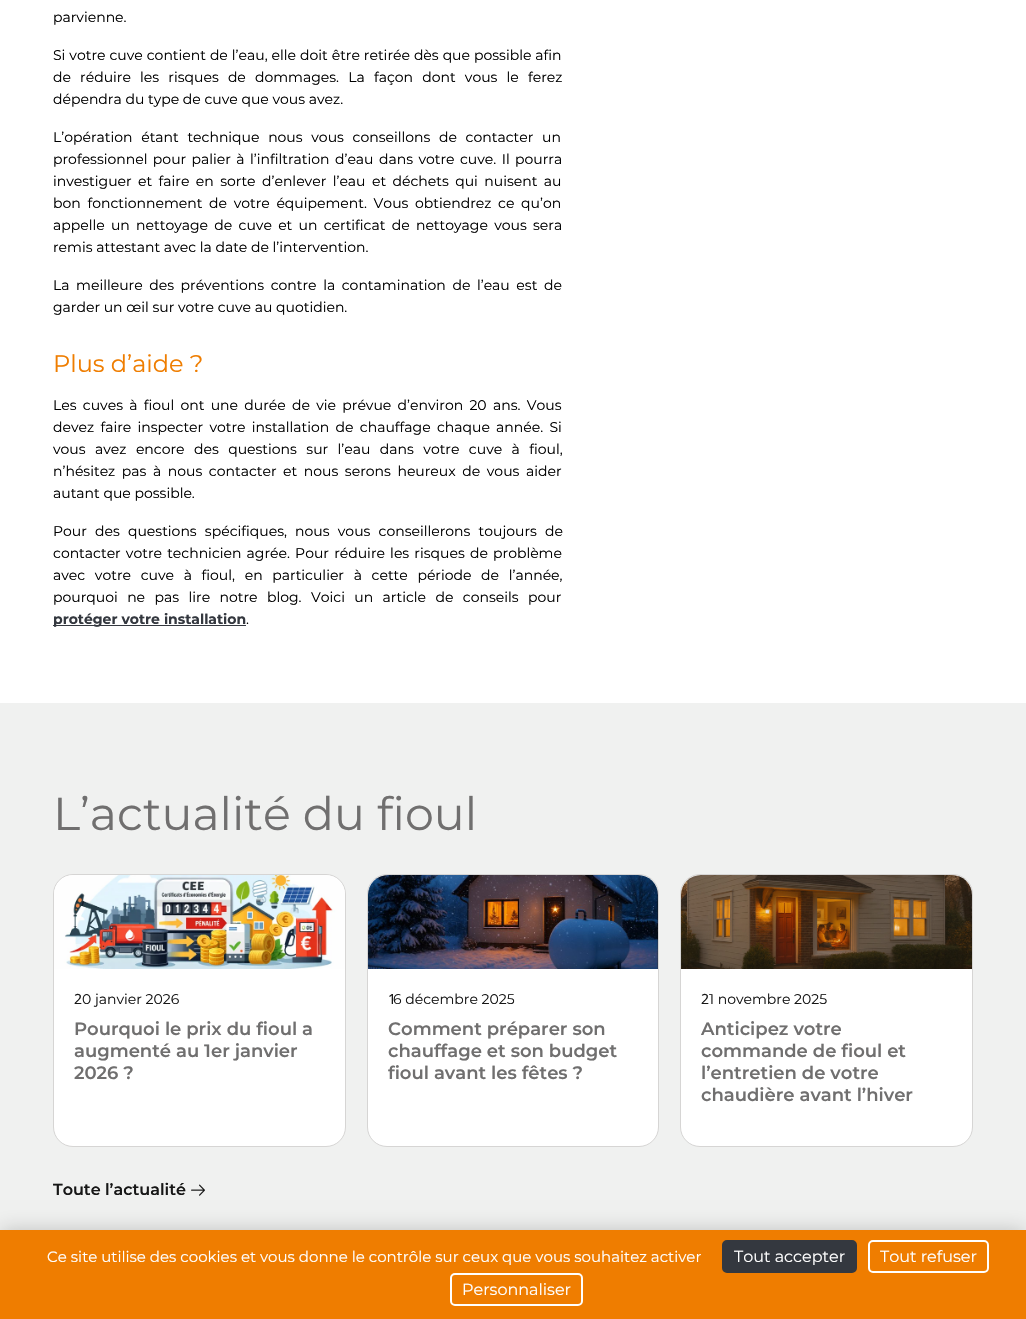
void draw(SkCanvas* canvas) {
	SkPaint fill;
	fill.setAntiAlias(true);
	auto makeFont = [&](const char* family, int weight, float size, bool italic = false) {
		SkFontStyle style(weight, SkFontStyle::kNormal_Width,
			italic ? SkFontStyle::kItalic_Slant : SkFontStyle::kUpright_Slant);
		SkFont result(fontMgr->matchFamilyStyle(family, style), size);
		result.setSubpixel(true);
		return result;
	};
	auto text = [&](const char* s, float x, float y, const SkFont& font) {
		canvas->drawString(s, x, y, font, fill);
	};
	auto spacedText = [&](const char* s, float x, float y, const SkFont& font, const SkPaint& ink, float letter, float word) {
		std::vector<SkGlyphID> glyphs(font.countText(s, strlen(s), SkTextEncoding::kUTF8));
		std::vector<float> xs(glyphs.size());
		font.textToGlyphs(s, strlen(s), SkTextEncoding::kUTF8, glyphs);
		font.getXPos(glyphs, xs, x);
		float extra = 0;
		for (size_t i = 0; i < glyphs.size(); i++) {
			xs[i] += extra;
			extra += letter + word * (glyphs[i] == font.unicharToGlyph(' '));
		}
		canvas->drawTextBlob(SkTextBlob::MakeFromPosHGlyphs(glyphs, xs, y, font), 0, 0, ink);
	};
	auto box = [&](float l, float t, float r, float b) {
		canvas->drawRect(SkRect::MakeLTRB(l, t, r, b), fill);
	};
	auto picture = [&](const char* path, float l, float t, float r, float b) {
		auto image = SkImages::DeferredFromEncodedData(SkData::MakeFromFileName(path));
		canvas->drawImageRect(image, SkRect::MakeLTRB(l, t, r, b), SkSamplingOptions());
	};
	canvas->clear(0xFFFFFFFF);
	fill.setColor(0xFF34383F);
	box(53, 625, 246, 626);
	fill.setColor(0xFFF0F1F0);
	box(0, 703, 1026, 1230);
	fill.setColor(0xFFFFFFFF);
	canvas->drawRoundRect(SkRect::MakeLTRB(53.5f, 874.5f, 345.5f, 1146.5f), 19.5f, 19.5f, fill);
	fill.setStyle(SkPaint::kStroke_Style);
	fill.setStrokeWidth(1);
	fill.setColor(0xFFD6D5D4);
	canvas->drawRoundRect(SkRect::MakeLTRB(53.5f, 874.5f, 345.5f, 1146.5f), 19.5f, 19.5f, fill);
	picture("image0.png", 54, 875, 345, 969);
	fill.setStyle(SkPaint::kFill_Style);
	fill.setColor(0xFFFFFFFF);
	canvas->drawRoundRect(SkRect::MakeLTRB(367.5f, 874.5f, 658.5f, 1146.5f), 19.5f, 19.5f, fill);
	fill.setStyle(SkPaint::kStroke_Style);
	fill.setColor(0xFFD6D5D4);
	canvas->drawRoundRect(SkRect::MakeLTRB(367.5f, 874.5f, 658.5f, 1146.5f), 19.5f, 19.5f, fill);
	picture("image1.png", 368, 875, 658, 969);
	fill.setStyle(SkPaint::kFill_Style);
	fill.setColor(0xFFFFFFFF);
	canvas->drawRoundRect(SkRect::MakeLTRB(680.5f, 874.5f, 972.5f, 1146.5f), 19.5f, 19.5f, fill);
	fill.setStyle(SkPaint::kStroke_Style);
	fill.setColor(0xFFD6D5D4);
	canvas->drawRoundRect(SkRect::MakeLTRB(680.5f, 874.5f, 972.5f, 1146.5f), 19.5f, 19.5f, fill);
	picture("image2.png", 681, 875, 972, 969);
	picture("image3.png", 191, 1184, 205, 1196);
	fill.setStyle(SkPaint::kFill_Style);
	fill.setColor(0x33000000);
	fill.setMaskFilter(SkMaskFilter::MakeBlur(kNormal_SkBlurStyle, 10));
	canvas->drawRect(SkRect::MakeLTRB(0, 1230, 1026, 1319), fill);
	fill.setMaskFilter(nullptr);
	fill.setColor(0xFFEF7D00);
	box(0, 1230, 1026, 1319);
	fill.setColor(0xFF34383F);
	canvas->drawRoundRect(SkRect::MakeLTRB(723, 1241, 856, 1272), 4, 4, fill);
	fill.setStyle(SkPaint::kStroke_Style);
	fill.setStrokeWidth(2);
	canvas->drawRoundRect(SkRect::MakeLTRB(723, 1241, 856, 1272), 4, 4, fill);
	fill.setColor(0xFFFFFFFF);
	canvas->drawRoundRect(SkRect::MakeLTRB(869, 1241, 988, 1272), 4, 4, fill);
	canvas->drawRoundRect(SkRect::MakeLTRB(451, 1274, 582, 1305), 4, 4, fill);
	auto font1 = makeFont("Montserrat", 400, 14);
	fill.setStyle(SkPaint::kFill_Style);
	fill.setColor(0xFF000000);
	text("parvienne.", 53, 22, font1);
	spacedText("Si votre cuve contient de l’eau, elle doit être retirée dès que possible afin", 53, 60, font1, fill, 0, 0.3f);
	spacedText("de réduire les risques de dommages. La façon dont vous le ferez", 53, 82, font1, fill, 0, 5.5f);
	text("dépendra du type de cuve que vous avez.", 53, 104, font1);
	spacedText("L’opération étant technique nous vous conseillons de contacter un", 53, 142, font1, fill, 0, 5);
	spacedText("professionnel pour palier à l’infiltration d’eau dans votre cuve. Il pourra", 53, 164, font1, fill, 0, 1.75f);
	spacedText("investiguer et faire en sorte d’enlever l’eau et déchets qui nuisent au", 53, 186, font1, fill, 0, 2.75f);
	spacedText("bon fonctionnement de votre équipement. Vous obtiendrez ce qu’on", 53, 208, font1, fill, 0, 3);
	spacedText("appelle un nettoyage de cuve et un certificat de nettoyage vous sera", 53, 230, font1, fill, 0, 2.6f);
	text("remis attestant avec la date de l’intervention.", 53, 252, font1);
	spacedText("La meilleure des préventions contre la contamination de l’eau est de", 53, 290, font1, fill, 0, 2.9f);
	text("garder un œil sur votre cuve au quotidien.", 53, 312, font1);
	auto font2 = makeFont("Montserrat", 400, 24);
	fill.setColor(0xFFEF7D00);
	text("Plus d’aide ?", 53, 372, font2);
	fill.setColor(0xFF000000);
	spacedText("Les cuves à fioul ont une durée de vie prévue d’environ 20 ans. Vous", 53, 410, font1, fill, 0, 2.6f);
	spacedText("devez faire inspecter votre installation de chauffage chaque année. Si", 53, 432, font1, fill, 0, 2.6f);
	spacedText("vous avez encore des questions sur l’eau dans votre cuve à fioul,", 53, 454, font1, fill, 0, 5.75f);
	spacedText("n’hésitez pas à nous contacter et nous serons heureux de vous aider", 53, 476, font1, fill, 0, 2.9f);
	text("autant que possible.", 53, 498, font1);
	spacedText("Pour des questions spécifiques, nous vous conseillerons toujours de", 53, 536, font1, fill, 0, 4.5f);
	spacedText("contacter votre technicien agrée. Pour réduire les risques de problème", 53, 558, font1, fill, 0, 1.5f);
	spacedText("avec votre cuve à fioul, en particulier à cette période de l’année,", 53, 580, font1, fill, 0, 6);
	spacedText("pourquoi ne pas lire notre blog. Voici un article de conseils pour", 53, 602, font1, fill, 0, 5.75f);
	auto font3 = makeFont("Montserrat", 700, 14);
	fill.setColor(0xFF34383F);
	text("protéger votre installation", 53, 624, font3);
	fill.setColor(0xFF000000);
	text(".", 246, 624, font1);
	auto font4 = makeFont("Montserrat", 400, 46);
	fill.setColor(0xFF706F6F);
	text("L’actualité du fioul", 53, 830, font4);
	auto font5 = makeFont("Noto Sans", 400, 14);
	fill.setColor(0xFF171717);
	text("2", 74, 1004, font5);
	text("0 janvier 2026", 82, 1004, font1);
	auto font6 = makeFont("Montserrat", 600, 18);
	fill.setColor(0xFF706F6F);
	text("Pourquoi le prix du fioul a", 74, 1035, font6);
	text("augmenté au 1er janvier", 74, 1057, font6);
	text("2026 ?", 74, 1079, font6);
	fill.setColor(0xFF171717);
	text("1", 388, 1004, font5);
	text("6 décembre 2025", 393, 1004, font1);
	fill.setColor(0xFF706F6F);
	text("Comment préparer son", 388, 1035, font6);
	text("chauffage et son budget", 388, 1057, font6);
	text("fioul avant les fêtes ?", 388, 1079, font6);
	fill.setColor(0xFF171717);
	text("2", 701, 1004, font5);
	text("1 novembre 2025", 709, 1004, font1);
	fill.setColor(0xFF706F6F);
	text("Anticipez votre", 701, 1035, font6);
	text("commande de fioul et", 701, 1057, font6);
	text("l’entretien de votre", 701, 1079, font6);
	text("chaudière avant l’hiver", 701, 1101, font6);
	auto font7 = makeFont("Montserrat", 600, 16);
	fill.setColor(0xFF171717);
	text("Toute l’actualité", 53, 1195, font7);
	auto font8 = makeFont("Montserrat", 400, 15);
	fill.setColor(0xFFFFFFFF);
	text("Ce site utilise des cookies et vous donne le contrôle sur ceux que vous souhaitez activer", 47, 1262, font8);
	auto font9 = makeFont("Montserrat", 400, 16);
	text("Tout accepter", 734, 1262, font9);
	text("Tout refuser", 880, 1262, font9);
	text("Personnaliser", 462, 1295, font9);
}
